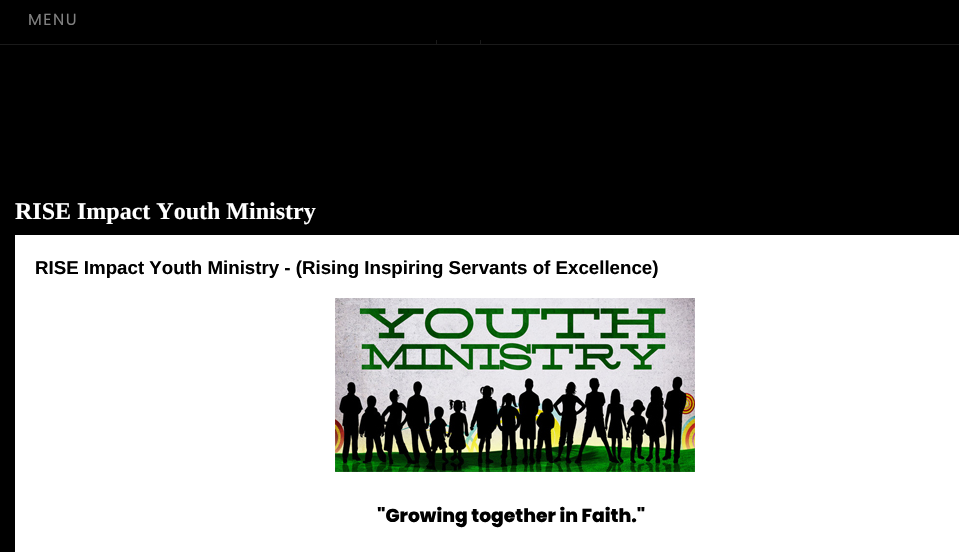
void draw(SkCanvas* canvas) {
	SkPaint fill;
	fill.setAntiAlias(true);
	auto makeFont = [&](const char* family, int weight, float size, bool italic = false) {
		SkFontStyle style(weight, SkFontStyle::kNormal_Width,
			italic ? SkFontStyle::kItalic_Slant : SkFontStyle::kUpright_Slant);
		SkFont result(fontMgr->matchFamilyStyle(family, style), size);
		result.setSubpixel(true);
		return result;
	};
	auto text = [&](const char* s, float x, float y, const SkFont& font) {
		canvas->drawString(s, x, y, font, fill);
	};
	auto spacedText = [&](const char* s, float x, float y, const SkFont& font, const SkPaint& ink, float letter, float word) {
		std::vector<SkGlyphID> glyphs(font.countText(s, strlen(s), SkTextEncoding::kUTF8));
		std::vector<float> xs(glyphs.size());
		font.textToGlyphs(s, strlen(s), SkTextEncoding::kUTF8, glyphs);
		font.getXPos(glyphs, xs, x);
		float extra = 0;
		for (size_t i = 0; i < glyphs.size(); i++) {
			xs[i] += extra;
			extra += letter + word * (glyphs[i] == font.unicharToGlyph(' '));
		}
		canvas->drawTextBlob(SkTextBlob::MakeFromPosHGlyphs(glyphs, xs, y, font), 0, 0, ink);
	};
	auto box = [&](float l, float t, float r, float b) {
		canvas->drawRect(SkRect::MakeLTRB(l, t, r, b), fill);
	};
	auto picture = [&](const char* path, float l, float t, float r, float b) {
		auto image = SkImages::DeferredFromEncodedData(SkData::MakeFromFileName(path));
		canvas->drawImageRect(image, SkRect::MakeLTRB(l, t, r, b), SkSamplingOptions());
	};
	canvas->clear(0xFF000000);
	fill.setColor(0xFFFFFFFF);
	box(15, 235, 959, 552);
	picture("image0.png", 335, 298, 695, 472);
	fill.setColor(0xFF1A1A1A);
	box(0, 44, 959, 45);
	box(436, 40, 437, 44);
	box(480, 40, 481, 44);
	auto font1 = makeFont("Poppins", 400, 16);
	fill.setColor(0xFF808080);
	spacedText("MENU", 28, 25, font1, fill, 1.5f, 0);
	auto font2 = makeFont("Liberation Serif", 700, 24);
	fill.setColor(0xFFFFFFFF);
	text("RISE Impact Youth Ministry", 15, 219, font2);
	auto font3 = makeFont("Liberation Sans", 700, 18.7f);
	fill.setColor(0xFF000000);
	text("RISE Impact Youth Ministry - (Rising Inspiring Servants of Excellence)", 35, 274, font3);
	auto font4 = makeFont("Poppins", 800, 18.7f);
	text("\"Growing together in Faith.\"", 377, 522, font4);
}
